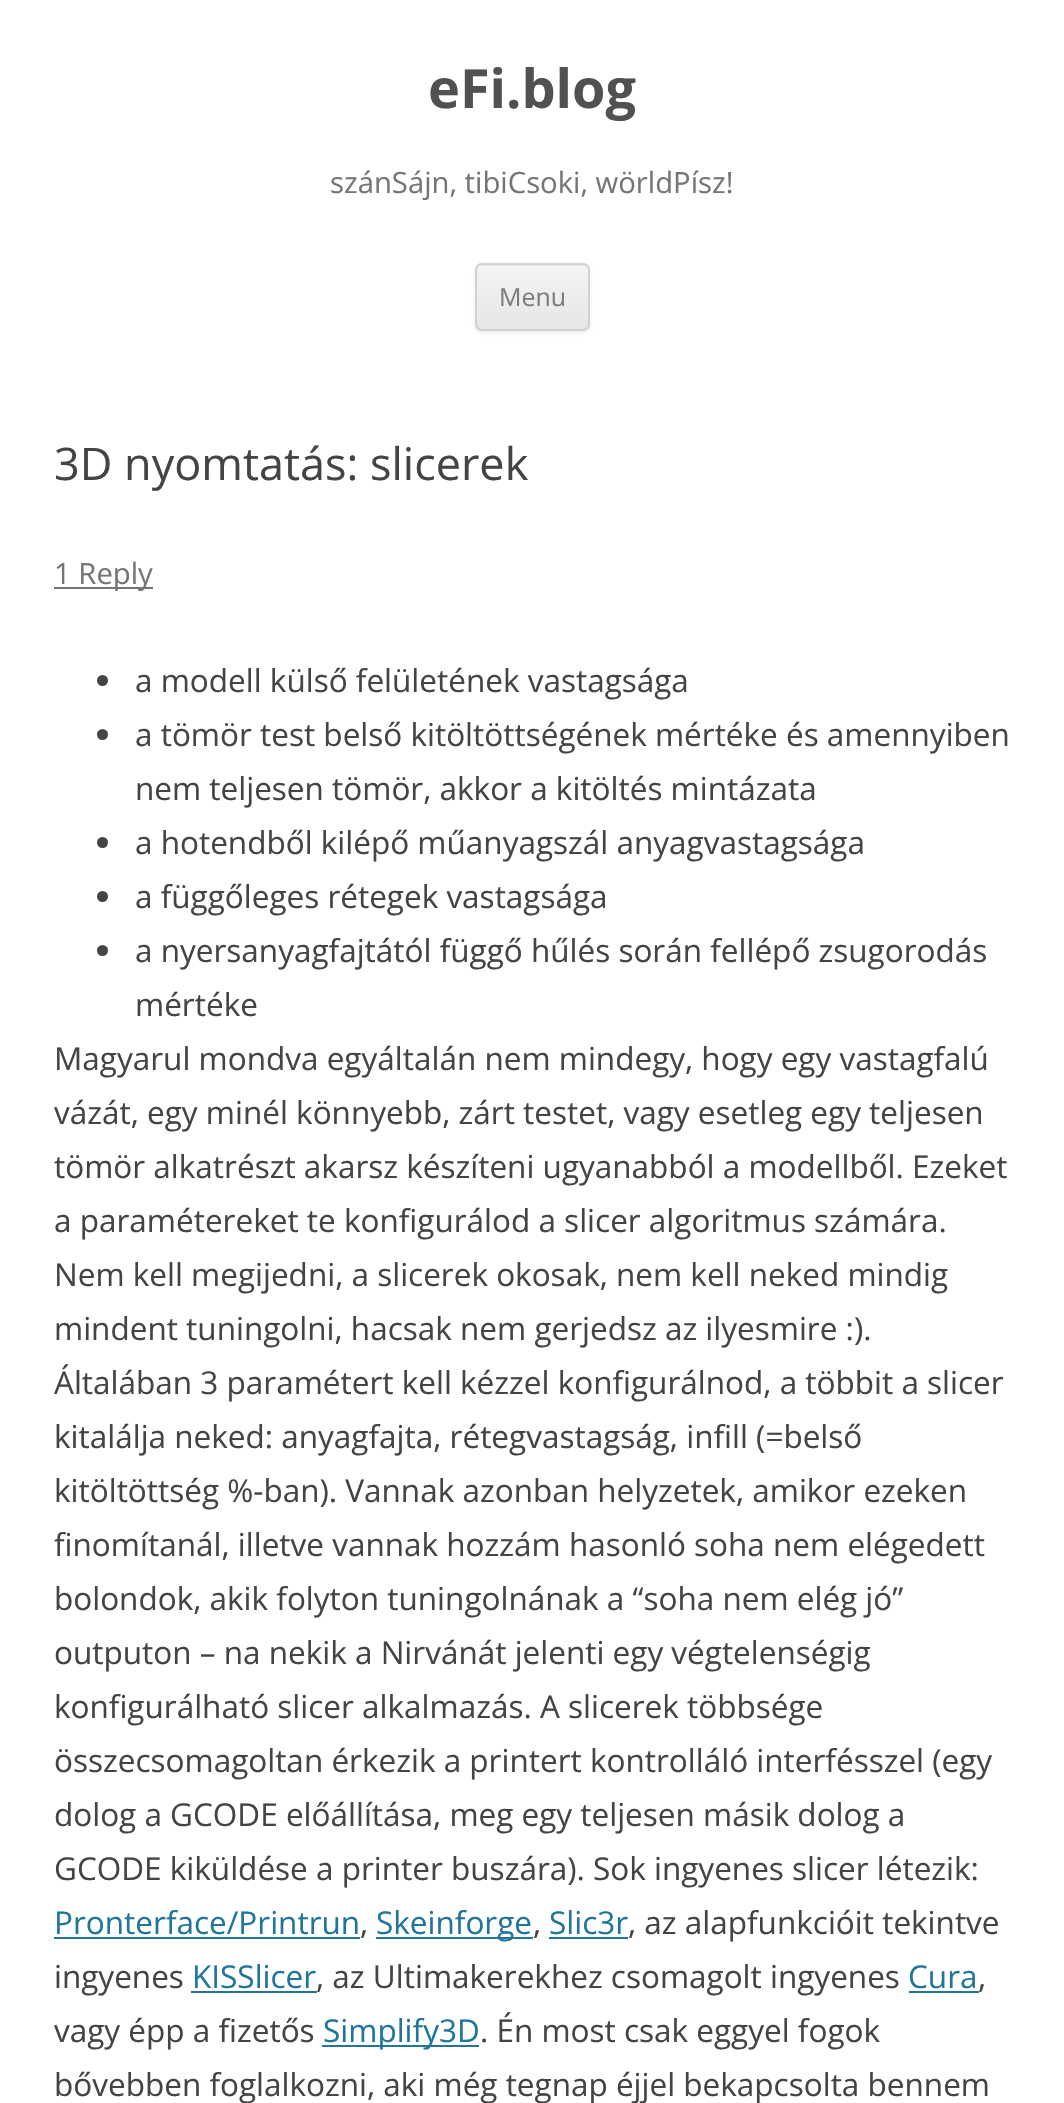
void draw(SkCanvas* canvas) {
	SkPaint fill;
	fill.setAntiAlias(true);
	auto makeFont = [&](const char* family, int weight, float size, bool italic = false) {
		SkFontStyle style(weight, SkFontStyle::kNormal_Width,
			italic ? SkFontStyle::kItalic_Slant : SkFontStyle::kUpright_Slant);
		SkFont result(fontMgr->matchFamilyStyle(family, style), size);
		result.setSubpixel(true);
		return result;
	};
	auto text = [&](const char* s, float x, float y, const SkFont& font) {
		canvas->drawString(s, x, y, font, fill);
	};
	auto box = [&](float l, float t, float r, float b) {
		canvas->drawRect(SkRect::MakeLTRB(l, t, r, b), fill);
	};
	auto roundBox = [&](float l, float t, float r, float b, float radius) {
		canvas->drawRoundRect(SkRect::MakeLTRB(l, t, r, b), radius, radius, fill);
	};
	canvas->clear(0xFFFFFFFF);
	fill.setColor(0x1A404040);
	fill.setMaskFilter(SkMaskFilter::MakeBlur(kNormal_SkBlurStyle, 2));
	canvas->drawRoundRect(SkRect::MakeLTRB(475, 266, 590, 333), 7, 7, fill);
	fill.setMaskFilter(nullptr);
	fill.setColor(0xFFE6E6E6);
	roundBox(475, 263, 590, 331, 7);
	canvas->save();
	canvas->clipPath(SkPathBuilder().moveTo(482, 263).lineTo(583, 263).cubicTo(587, 263, 590, 266, 590, 270).lineTo(590, 324).cubicTo(590, 328, 587, 331, 583, 331).lineTo(482, 331).cubicTo(478, 331, 475, 328, 475, 324).lineTo(475, 270).cubicTo(475, 266, 478, 263, 482, 263).close().detach(), true);
	{
		const SkColor colors[] = {0xFFF4F4F4, 0xFFE6E6E6};
		const float stops[] = {0, 1};
		const SkPoint ends[] = {{532, 266}, {532, 329}};
		fill.setShader(SkGradientShader::MakeLinear(ends, colors, stops, 2, SkTileMode::kClamp));
		fill.setAlpha(255);
	}
	box(475, 266, 590, 329);
	canvas->restore();
	fill.setStyle(SkPaint::kStroke_Style);
	fill.setStrokeWidth(2);
	fill.setShader(nullptr);
	fill.setColor(0xFFD2D2D2);
	canvas->drawRoundRect(SkRect::MakeLTRB(476, 264, 589, 330), 6, 6, fill);
	fill.setStyle(SkPaint::kFill_Style);
	fill.setColor(0xFF757575);
	box(54, 587, 153, 589);
	fill.setColor(0xFF444444);
	canvas->drawCircle(102.5f, 680.5f, 5.5f, fill);
	canvas->drawCircle(102.5f, 734.5f, 5.5f, fill);
	canvas->drawCircle(102.5f, 842.5f, 5.5f, fill);
	canvas->drawCircle(102.5f, 896.5f, 5.5f, fill);
	canvas->drawCircle(102.5f, 950.5f, 5.5f, fill);
	fill.setColor(0xFF21759B);
	box(54, 1937, 360, 1939);
	box(376, 1937, 533, 1939);
	box(549, 1937, 628, 1939);
	box(191, 1991, 317, 1993);
	box(909, 1991, 979, 1993);
	box(322, 2045, 479, 2047);
	auto font1 = makeFont("Open Sans", 700, 54);
	fill.setColor(0xFF515151);
	text("eFi.blog", 428, 108, font1);
	auto font2 = makeFont("Open Sans", 400, 29.25f);
	fill.setColor(0xFF757575);
	text("szánSájn, tibiCsoki, wörldPísz!", 330, 193, font2);
	auto font3 = makeFont("Open Sans", 400, 25);
	fill.setColor(0xFF7C7C7C);
	text("Menu", 499, 306, font3);
	auto font4 = makeFont("Open Sans", 400, 45);
	fill.setColor(0xFF444444);
	text("3D nyomtatás: slicerek", 54, 480, font4);
	fill.setColor(0xFF757575);
	text("1 Reply", 54, 584, font2);
	auto font5 = makeFont("Open Sans", 400, 31.5f);
	fill.setColor(0xFF444444);
	text("a modell külső felületének vastagsága", 135, 692, font5);
	text("a tömör test belső kitöltöttségének mértéke és amennyiben", 135, 746, font5);
	text("nem teljesen tömör, akkor a kitöltés mintázata", 135, 800, font5);
	text("a hotendből kilépő műanyagszál anyagvastagsága", 135, 854, font5);
	text("a függőleges rétegek vastagsága", 135, 908, font5);
	text("a nyersanyagfajtától függő hűlés során fellépő zsugorodás", 135, 962, font5);
	text("mértéke", 135, 1016, font5);
	text("Magyarul mondva egyáltalán nem mindegy, hogy egy vastagfalú", 54, 1070, font5);
	text("vázát, egy minél könnyebb, zárt testet, vagy esetleg egy teljesen", 54, 1124, font5);
	text("tömör alkatrészt akarsz készíteni ugyanabból a modellből. Ezeket", 54, 1178, font5);
	text("a paramétereket te konfigurálod a slicer algoritmus számára.", 54, 1232, font5);
	text("Nem kell megijedni, a slicerek okosak, nem kell neked mindig", 54, 1286, font5);
	text("mindent tuningolni, hacsak nem gerjedsz az ilyesmire :).", 54, 1340, font5);
	text("Általában 3 paramétert kell kézzel konfigurálnod, a többit a slicer", 54, 1394, font5);
	text("kitalálja neked: anyagfajta, rétegvastagság, infill (=belső", 54, 1448, font5);
	text("kitöltöttség %-ban). Vannak azonban helyzetek, amikor ezeken", 54, 1502, font5);
	text("finomítanál, illetve vannak hozzám hasonló soha nem elégedett", 54, 1556, font5);
	text("bolondok, akik folyton tuningolnának a “soha nem elég jó”", 54, 1610, font5);
	text("outputon – na nekik a Nirvánát jelenti egy végtelenségig", 54, 1664, font5);
	text("konfigurálható slicer alkalmazás. A slicerek többsége", 54, 1718, font5);
	text("összecsomagoltan érkezik a printert kontrolláló interfésszel (egy", 54, 1772, font5);
	text("dolog a GCODE előállítása, meg egy teljesen másik dolog a", 54, 1826, font5);
	text("GCODE kiküldése a printer buszára). Sok ingyenes slicer létezik:", 54, 1880, font5);
	fill.setColor(0xFF21759B);
	text("Pronterface/Printrun", 54, 1934, font5);
	fill.setColor(0xFF444444);
	text(",", 360, 1934, font5);
	fill.setColor(0xFF21759B);
	text("Skeinforge", 376, 1934, font5);
	fill.setColor(0xFF444444);
	text(",", 533, 1934, font5);
	fill.setColor(0xFF21759B);
	text("Slic3r", 549, 1934, font5);
	fill.setColor(0xFF444444);
	text(", az alapfunkcióit tekintve", 628, 1934, font5);
	text("ingyenes", 54, 1988, font5);
	fill.setColor(0xFF21759B);
	text("KISSlicer", 192, 1988, font5);
	fill.setColor(0xFF444444);
	text(", az Ultimakerekhez csomagolt ingyenes", 316, 1988, font5);
	fill.setColor(0xFF21759B);
	text("Cura", 908, 1988, font5);
	fill.setColor(0xFF444444);
	text(",", 978, 1988, font5);
	text("vagy épp a fizetős", 54, 2042, font5);
	fill.setColor(0xFF21759B);
	text("Simplify3D", 323, 2042, font5);
	fill.setColor(0xFF444444);
	text(". Én most csak eggyel fogok", 480, 2042, font5);
	text("bővebben foglalkozni, aki még tegnap éjjel bekapcsolta bennem", 54, 2096, font5);
}
